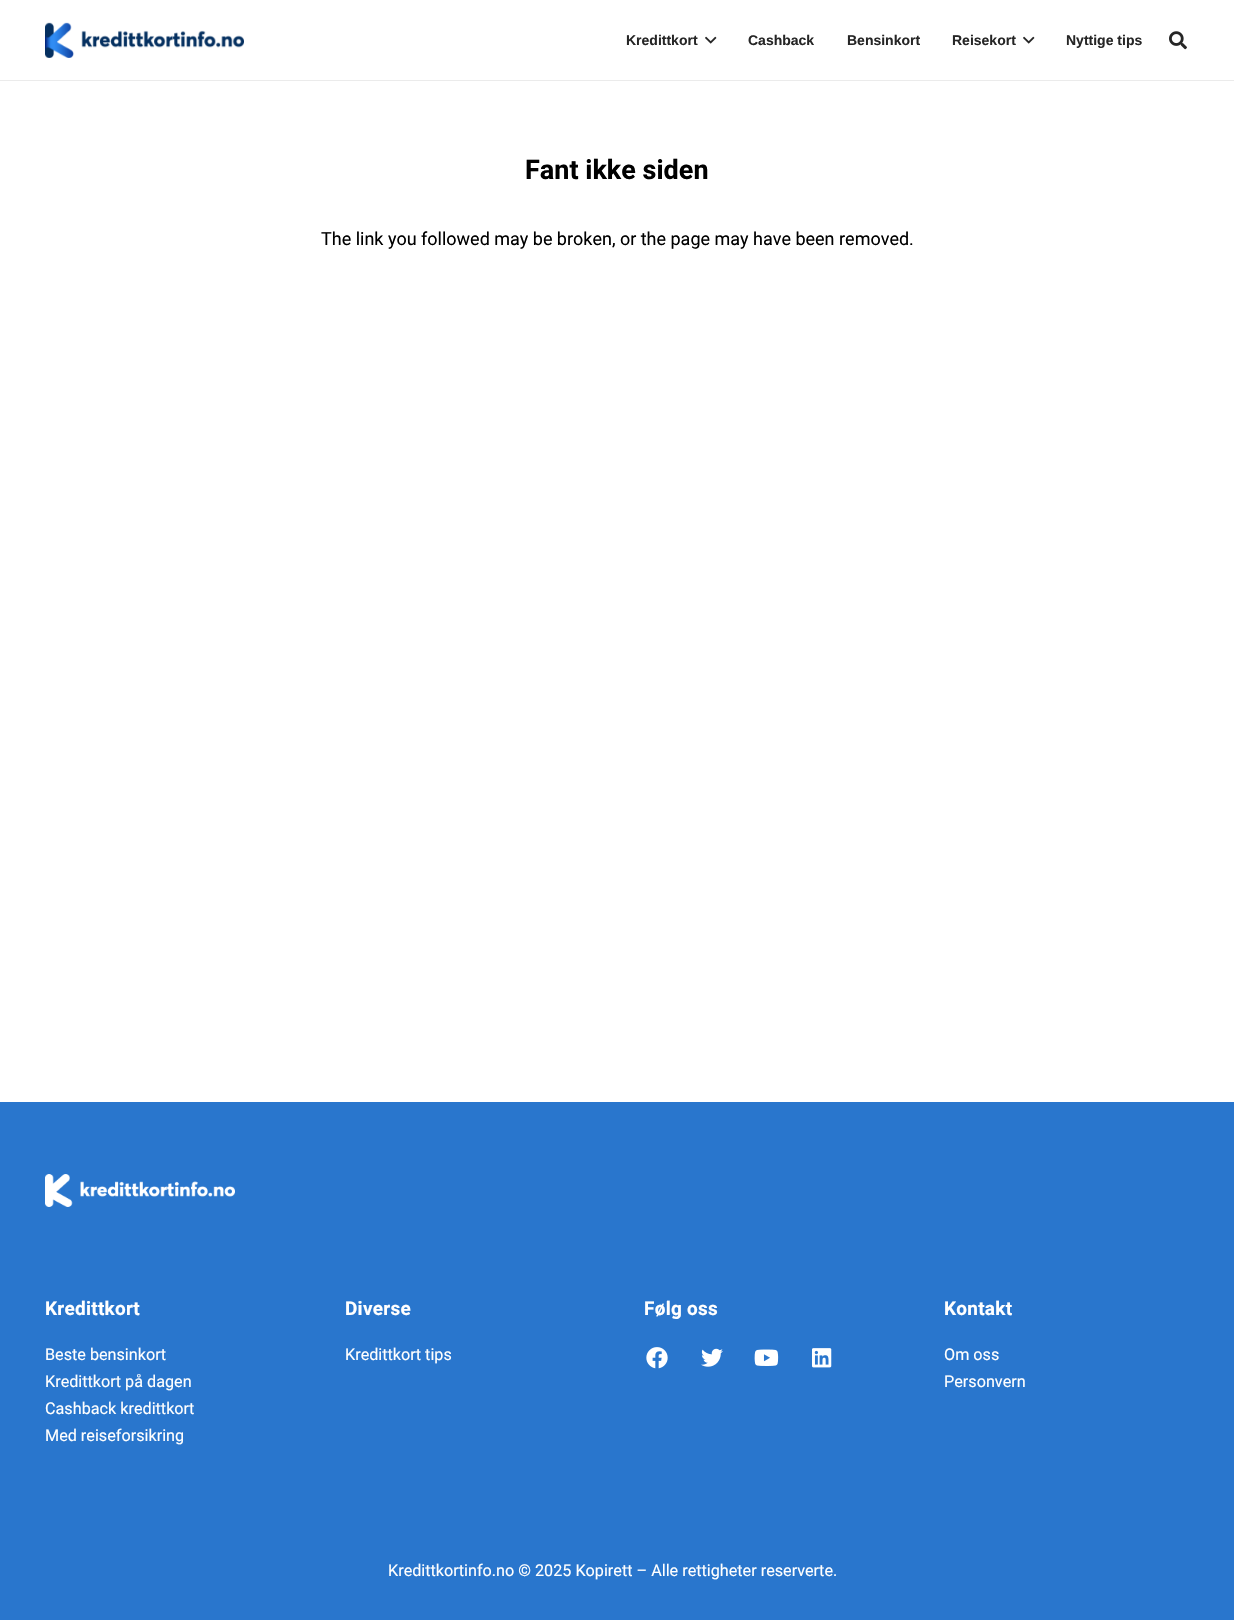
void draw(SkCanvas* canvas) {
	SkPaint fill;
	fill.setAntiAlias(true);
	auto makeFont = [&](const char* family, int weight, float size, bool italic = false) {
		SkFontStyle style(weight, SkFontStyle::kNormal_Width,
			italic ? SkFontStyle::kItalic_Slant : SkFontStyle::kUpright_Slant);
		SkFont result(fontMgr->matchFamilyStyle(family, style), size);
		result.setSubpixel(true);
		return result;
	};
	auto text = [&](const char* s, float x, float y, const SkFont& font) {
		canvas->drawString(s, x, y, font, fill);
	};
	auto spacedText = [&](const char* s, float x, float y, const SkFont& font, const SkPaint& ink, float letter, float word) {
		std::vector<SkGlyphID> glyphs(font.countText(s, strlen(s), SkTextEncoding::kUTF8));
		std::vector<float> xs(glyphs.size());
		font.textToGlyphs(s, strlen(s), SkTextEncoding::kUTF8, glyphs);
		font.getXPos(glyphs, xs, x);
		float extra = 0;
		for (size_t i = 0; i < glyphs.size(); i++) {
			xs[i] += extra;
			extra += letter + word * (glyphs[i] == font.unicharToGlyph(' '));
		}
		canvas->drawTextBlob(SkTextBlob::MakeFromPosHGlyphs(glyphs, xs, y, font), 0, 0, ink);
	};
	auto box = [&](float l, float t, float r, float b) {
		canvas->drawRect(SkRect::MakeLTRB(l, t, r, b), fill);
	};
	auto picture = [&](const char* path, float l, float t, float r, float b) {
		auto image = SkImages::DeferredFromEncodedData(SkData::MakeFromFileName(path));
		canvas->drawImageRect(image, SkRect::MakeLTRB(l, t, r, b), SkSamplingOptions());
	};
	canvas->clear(0xFFFFFFFF);
	fill.setColor(0xFFEBEBEB);
	box(0, 80, 1234, 81);
	picture("image0.png", 45, 22, 244, 58);
	picture("image1.png", 705, 36, 717, 44);
	picture("image1.png", 1023, 36, 1035, 44);
	picture("image2.png", 1169, 31, 1187, 50);
	fill.setColor(0xFF2976CD);
	box(0, 1102, 1234, 1620);
	picture("image3.png", 45, 1174, 235, 1207);
	picture("image4.png", 646, 1347, 668, 1369);
	picture("image5.png", 701, 1348, 723, 1367);
	picture("image6.png", 754, 1349, 779, 1366);
	picture("image7.png", 812, 1348, 832, 1368);
	auto font1 = makeFont("Liberation Sans", 700, 14);
	fill.setColor(0xFF262626);
	text("Kredittkort", 626, 45, font1);
	text("Cashback", 748, 45, font1);
	text("Bensinkort", 847, 45, font1);
	text("Reisekort", 952, 45, font1);
	text("Nyttige tips", 1066, 45, font1);
	auto font2 = makeFont("Roboto", 700, 27);
	fill.setColor(0xFF000000);
	text("Fant ikke siden", 525, 179, font2);
	auto font3 = makeFont("Roboto", 400, 18);
	text("The link you followed may be broken, or the page may have been removed.", 321, 245, font3);
	auto font4 = makeFont("Roboto", 700, 19);
	fill.setColor(0xFFFFFFFF);
	spacedText("Kredittkort", 45, 1315, font4, fill, 0.25f, 0);
	auto font5 = makeFont("Roboto", 400, 16.2f);
	text("Beste bensinkort", 45, 1360, font5);
	text("Kredittkort på dagen", 45, 1387, font5);
	text("Cashback kredittkort", 45, 1414, font5);
	text("Med reiseforsikring", 45, 1441, font5);
	spacedText("Diverse", 345, 1315, font4, fill, 0.25f, 0);
	text("Kredittkort tips", 345, 1360, font5);
	spacedText("Følg oss", 644, 1315, font4, fill, 0.25f, 0);
	spacedText("Kontakt", 944, 1315, font4, fill, 0.25f, 0);
	text("Om oss", 944, 1360, font5);
	text("Personvern", 944, 1387, font5);
	text("Kredittkortinfo.no © 2025 Kopirett – Alle rettigheter reserverte.", 388, 1576, font5);
}
